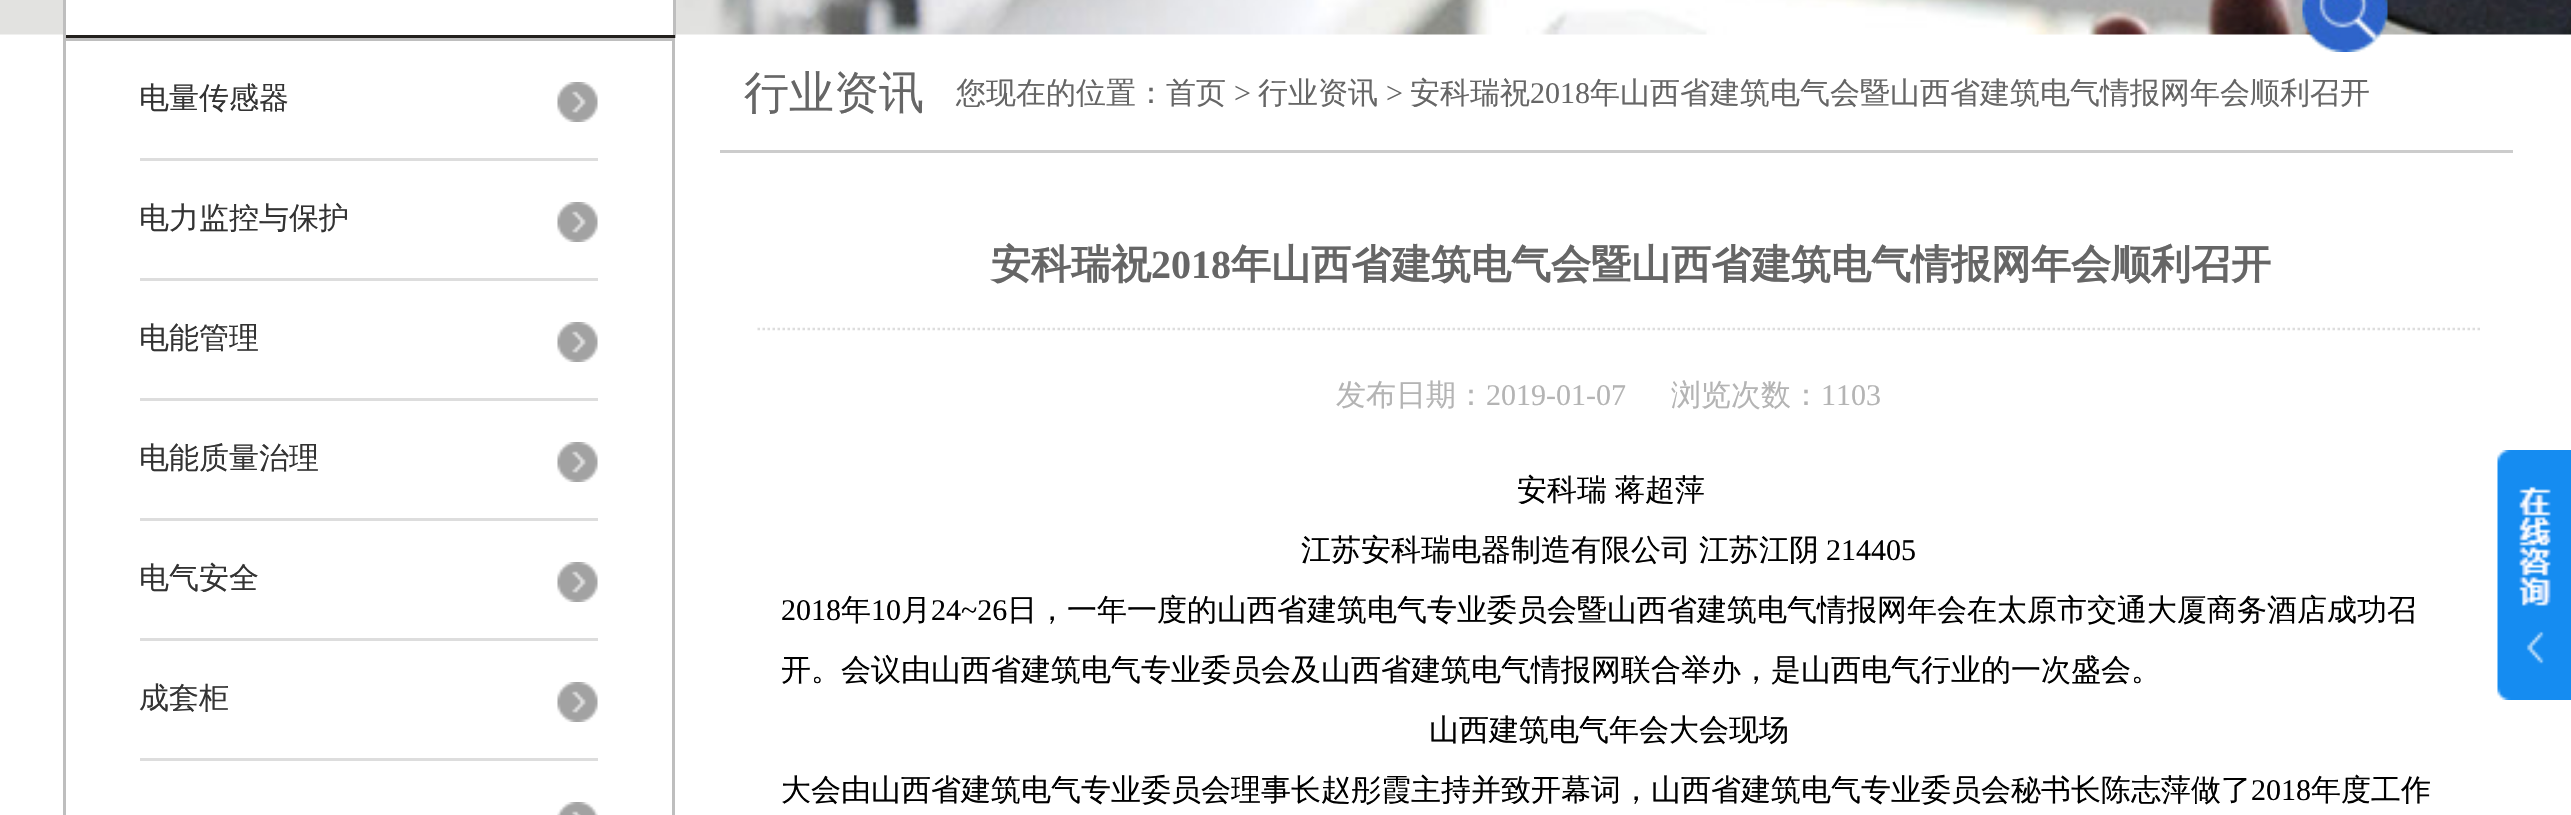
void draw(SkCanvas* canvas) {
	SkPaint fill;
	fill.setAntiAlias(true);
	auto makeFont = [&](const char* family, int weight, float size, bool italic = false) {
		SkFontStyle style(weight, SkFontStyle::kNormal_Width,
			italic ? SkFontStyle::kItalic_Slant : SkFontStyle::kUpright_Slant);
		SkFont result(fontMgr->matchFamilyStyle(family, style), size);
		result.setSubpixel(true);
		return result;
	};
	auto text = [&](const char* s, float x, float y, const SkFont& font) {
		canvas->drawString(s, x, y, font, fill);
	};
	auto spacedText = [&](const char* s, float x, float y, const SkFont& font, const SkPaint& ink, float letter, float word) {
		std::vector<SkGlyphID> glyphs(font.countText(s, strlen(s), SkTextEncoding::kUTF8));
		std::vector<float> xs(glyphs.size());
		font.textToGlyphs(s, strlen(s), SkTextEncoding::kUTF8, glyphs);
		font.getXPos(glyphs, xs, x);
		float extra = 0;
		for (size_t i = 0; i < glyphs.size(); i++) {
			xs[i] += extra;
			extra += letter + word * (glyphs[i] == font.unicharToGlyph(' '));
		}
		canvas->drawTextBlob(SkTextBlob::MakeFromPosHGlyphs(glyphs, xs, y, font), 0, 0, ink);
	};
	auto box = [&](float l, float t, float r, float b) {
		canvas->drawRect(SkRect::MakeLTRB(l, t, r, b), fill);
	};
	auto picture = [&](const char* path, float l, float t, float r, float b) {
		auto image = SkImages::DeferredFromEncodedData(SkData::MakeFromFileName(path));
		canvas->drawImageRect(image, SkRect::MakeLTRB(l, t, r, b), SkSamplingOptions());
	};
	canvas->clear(0xFFFFFFFF);
	picture("image0.png", 0, 0, 2571, 35);
	fill.setColor(0xFFFFFFFF);
	box(66, 0, 673, 35);
	fill.setColor(0xFFBEBEBE);
	box(673, 0, 676, 38);
	fill.setColor(0xFF23201D);
	box(63, 35, 675, 38);
	fill.setColor(0xFFBEBEBE);
	box(63, 0, 66, 38);
	picture("image1.png", 2302, 0, 2388, 52);
	fill.setStyle(SkPaint::kStroke_Style);
	fill.setStrokeWidth(3);
	canvas->drawRect(SkRect::MakeLTRB(64.5f, 39.5f, 673.5f, 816.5f), fill);
	picture("image2.png", 557, 82, 598, 122);
	fill.setStyle(SkPaint::kFill_Style);
	fill.setColor(0xFFDDDDDD);
	box(140, 158, 598, 161);
	picture("image2.png", 557, 202, 598, 242);
	box(140, 278, 598, 281);
	picture("image2.png", 557, 322, 598, 362);
	box(140, 398, 598, 401);
	picture("image2.png", 557, 442, 598, 482);
	box(140, 518, 598, 521);
	picture("image2.png", 557, 562, 598, 602);
	box(140, 638, 598, 641);
	picture("image2.png", 557, 682, 598, 722);
	box(140, 758, 598, 761);
	picture("image3.png", 557, 802, 598, 815);
	fill.setColor(0xFFCCCCCC);
	box(720, 150, 2513, 153);
	fill.setStyle(SkPaint::kStroke_Style);
	fill.setStrokeWidth(2.5f);
	fill.setColor(0xFFDDDDDD);
	fill.setPathEffect(SkDashPathEffect::Make({{2.5f, 2.5f}}, 0));
	canvas->drawPath(SkPathBuilder().moveTo(757.5f, 329).lineTo(2482.5f, 329).detach(), fill);
	fill.setPathEffect(nullptr);
	picture("image4.png", 2497, 450, 2571, 700);
	auto font1 = makeFont("WenQuanYi Zen Hei", 500, 30);
	fill.setStyle(SkPaint::kFill_Style);
	fill.setColor(0xFF333333);
	text("电量传感器", 139, 108, font1);
	text("电力监控与保护", 139, 228, font1);
	text("电能管理", 139, 348, font1);
	text("电能质量治理", 139, 468, font1);
	text("电气安全", 139, 588, font1);
	text("成套柜", 139, 708, font1);
	auto font2 = makeFont("WenQuanYi Zen Hei", 500, 45);
	fill.setColor(0xFF666666);
	text("行业资讯", 744, 108, font2);
	text("您现在的位置：首页", 956, 103, font1);
	auto font3 = makeFont("Liberation Serif", 400, 30);
	text(">", 1234, 103, font3);
	text("行业资讯", 1258, 103, font1);
	text(">", 1386, 103, font3);
	text("安科瑞祝", 1410, 103, font1);
	text("2018", 1530, 103, font3);
	text("年山西省建筑电气会暨山西省建筑电气情报网年会顺利召开", 1590, 103, font1);
	auto font4 = makeFont("WenQuanYi Zen Hei", 700, 40);
	text("安科瑞祝", 991, 278, font4);
	auto font5 = makeFont("Liberation Serif", 700, 40);
	text("2018", 1151, 278, font5);
	text("年山西省建筑电气会暨山西省建筑电气情报网年会顺利召开", 1231, 278, font4);
	fill.setColor(0xFFB4B4B4);
	text("发布日期：", 1336, 405, font1);
	text("2019-01-07", 1486, 405, font3);
	text("浏览次数：", 1671, 405, font1);
	text("1103", 1821, 405, font3);
	fill.setColor(0xFF000000);
	spacedText("安科瑞 蒋超萍", 1517, 500, font1, fill, 0, -1);
	spacedText("江苏安科瑞电器制造有限公司 江苏江阴", 1301, 560, font1, fill, 0, -1);
	text("214405", 1826, 560, font3);
	text("2018", 781, 620, font3);
	text("年", 841, 620, font1);
	text("10", 871, 620, font3);
	text("月", 901, 620, font1);
	text("24~26", 931, 620, font3);
	text("日，一年一度的山西省建筑电气专业委员会暨山西省建筑电气情报网年会在太原市交通大厦商务酒店成功召", 1007, 620, font1);
	text("开。会议由山西省建筑电气专业委员会及山西省建筑电气情报网联合举办，是山西电气行业的一次盛会。", 781, 680, font1);
	text("山西建筑电气年会大会现场", 1429, 740, font1);
	text("大会由山西省建筑电气专业委员会理事长赵彤霞主持并致开幕词，山西省建筑电气专业委员会秘书长陈志萍做了", 781, 800, font1);
	text("2018", 2251, 800, font3);
	text("年度工作", 2311, 800, font1);
}
